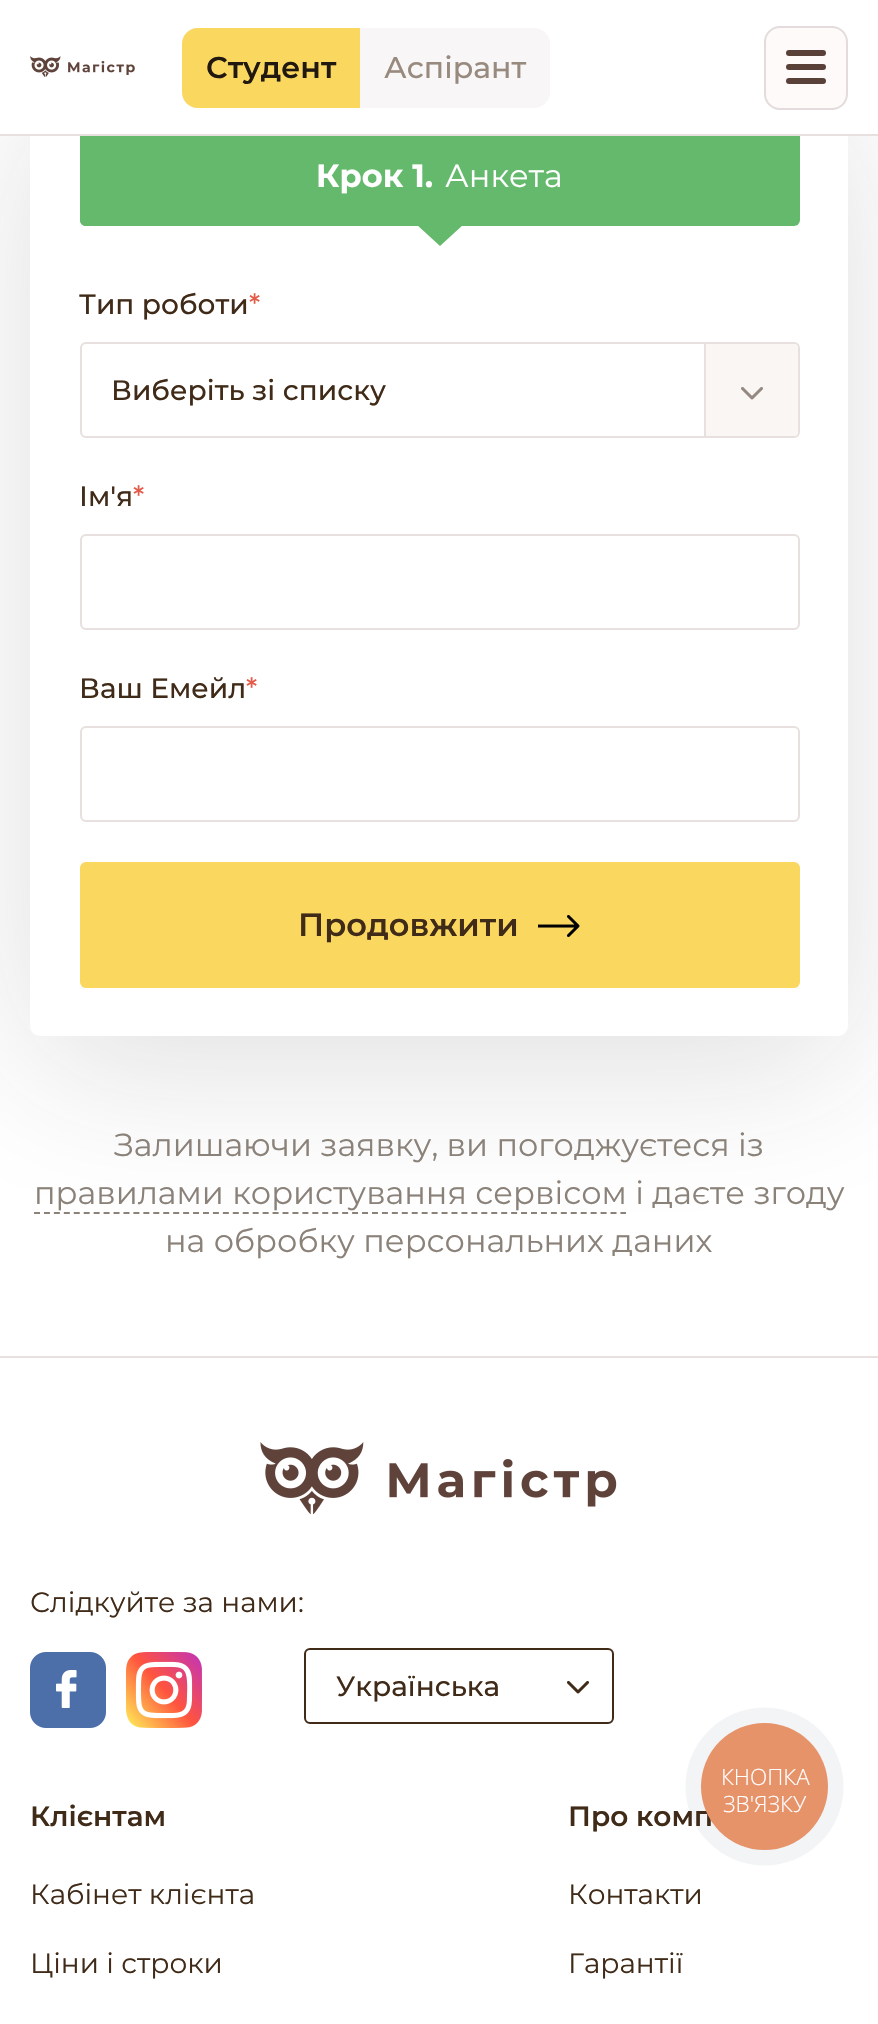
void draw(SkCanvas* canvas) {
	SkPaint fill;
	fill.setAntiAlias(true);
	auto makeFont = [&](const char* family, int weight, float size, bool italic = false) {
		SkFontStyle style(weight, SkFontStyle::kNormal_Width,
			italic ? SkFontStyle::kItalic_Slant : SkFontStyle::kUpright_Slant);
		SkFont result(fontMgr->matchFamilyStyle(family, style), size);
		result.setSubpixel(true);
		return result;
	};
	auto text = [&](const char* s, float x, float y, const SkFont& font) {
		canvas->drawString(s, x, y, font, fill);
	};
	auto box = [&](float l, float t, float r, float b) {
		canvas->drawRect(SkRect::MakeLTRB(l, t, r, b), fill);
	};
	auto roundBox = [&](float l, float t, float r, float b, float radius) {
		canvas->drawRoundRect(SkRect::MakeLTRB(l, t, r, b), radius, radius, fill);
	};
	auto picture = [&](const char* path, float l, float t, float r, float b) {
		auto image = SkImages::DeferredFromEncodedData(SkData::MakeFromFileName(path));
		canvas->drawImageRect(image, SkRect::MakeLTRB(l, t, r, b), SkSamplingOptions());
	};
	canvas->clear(0xFFFFFFFF);
	fill.setColor(0x26312929);
	fill.setMaskFilter(SkMaskFilter::MakeBlur(kNormal_SkBlurStyle, 80));
	canvas->drawRoundRect(SkRect::MakeLTRB(30, 108, 848, 1066), 10, 10, fill);
	fill.setMaskFilter(nullptr);
	fill.setColor(0xFFFFFFFF);
	roundBox(30, 78, 848, 1036, 10);
	fill.setColor(0xFF65B96D);
	roundBox(80, 126, 800, 226, 6);
	canvas->drawPath(SkPathBuilder().moveTo(86, 126).lineTo(184, 126).lineTo(184, 226).lineTo(86, 226).cubicTo(82.5f, 226, 80, 223.5f, 80, 220).lineTo(80, 132).cubicTo(80, 128.5f, 82.5f, 126, 86, 126).close().detach(), fill);
	fill.setColor(0xFFFFFFFF);
	box(0, 0, 878, 134);
	fill.setColor(0xFFE7E0DE);
	box(0, 134, 878, 136);
	picture("image0.png", 30, 56, 135, 77);
	fill.setColor(0xFFF8F6F6);
	roundBox(182, 28, 550, 108, 16);
	fill.setColor(0xFFFAD75F);
	canvas->drawPath(SkPathBuilder().moveTo(198, 28).lineTo(360, 28).lineTo(360, 108).lineTo(198, 108).cubicTo(189, 108, 182, 101, 182, 92).lineTo(182, 44).cubicTo(182, 35, 189, 28, 198, 28).close().detach(), fill);
	fill.setColor(0xFFFFFAFA);
	canvas->drawRoundRect(SkRect::MakeLTRB(765, 27, 847, 109), 15, 15, fill);
	fill.setStyle(SkPaint::kStroke_Style);
	fill.setStrokeWidth(2);
	fill.setColor(0xFFE4DCDC);
	canvas->drawRoundRect(SkRect::MakeLTRB(765, 27, 847, 109), 15, 15, fill);
	fill.setStyle(SkPaint::kFill_Style);
	fill.setColor(0xFF594139);
	roundBox(786, 50, 826, 56, 3);
	roundBox(786, 64, 826, 70, 3);
	roundBox(786, 78, 826, 84, 3);
	fill.setColor(0xFF65B96D);
	canvas->drawPath(SkPathBuilder().moveTo(416, 224).lineTo(464, 224).lineTo(440, 246).close().detach(), fill);
	fill.setStyle(SkPaint::kStroke_Style);
	fill.setColor(0xFFE7E0DE);
	canvas->drawRoundRect(SkRect::MakeLTRB(81, 343, 799, 437), 5, 5, fill);
	fill.setStyle(SkPaint::kFill_Style);
	fill.setColor(0xFFF9F6F4);
	canvas->drawPath(SkPathBuilder().moveTo(704, 344).lineTo(792, 344).cubicTo(795.5f, 344, 798, 346.5f, 798, 350).lineTo(798, 430).cubicTo(798, 433.5f, 795.5f, 436, 792, 436).lineTo(704, 436).close().detach(), fill);
	fill.setColor(0xFFE7E0DE);
	box(704, 344, 706, 436);
	picture("image1.png", 741, 387, 763, 400);
	fill.setStyle(SkPaint::kStroke_Style);
	canvas->drawRoundRect(SkRect::MakeLTRB(81, 535, 799, 629), 5, 5, fill);
	canvas->drawRoundRect(SkRect::MakeLTRB(81, 727, 799, 821), 5, 5, fill);
	fill.setStyle(SkPaint::kFill_Style);
	fill.setColor(0xFFFAD75F);
	roundBox(80, 862, 800, 988, 6);
	picture("image2.png", 538, 915, 580, 937);
	fill.setStyle(SkPaint::kStroke_Style);
	fill.setColor(0xFF8A8179);
	fill.setPathEffect(SkDashPathEffect::Make({{6, 3.94f}}, 0));
	canvas->drawPath(SkPathBuilder().moveTo(34, 1213).lineTo(626, 1213).detach(), fill);
	fill.setPathEffect(nullptr);
	fill.setStyle(SkPaint::kFill_Style);
	fill.setColor(0xFFE7E0DE);
	box(0, 1356, 878, 1358);
	picture("image3.png", 260, 1442, 617, 1514);
	picture("image4.png", 30, 1652, 106, 1728);
	picture("image5.png", 126, 1652, 202, 1728);
	fill.setStyle(SkPaint::kStroke_Style);
	fill.setColor(0xFF402A18);
	canvas->drawRoundRect(SkRect::MakeLTRB(305, 1649, 613, 1723), 5, 5, fill);
	picture("image6.png", 567, 1681, 589, 1694);
	fill.setStyle(SkPaint::kFill_Style);
	fill.setColor(0x0F2A405D);
	canvas->drawCircle(764.5f, 1786.5f, 79, fill);
	auto font1 = makeFont("Montserrat", 600, 30);
	fill.setColor(0xFF211810);
	text("Студент", 206, 78, font1);
	auto font2 = makeFont("Montserrat", 500, 30);
	fill.setColor(0xFF988A7E);
	text("Аспірант", 384, 78, font2);
	auto font3 = makeFont("Montserrat", 700, 32);
	fill.setColor(0xFFFFFFFF);
	text("Крок 1.", 316, 187, font3);
	auto font4 = makeFont("Montserrat", 400, 32);
	text("Анкета", 445, 187, font4);
	auto font5 = makeFont("Montserrat", 500, 28);
	fill.setColor(0xFF402A18);
	text("Тип роботи", 79, 314, font5);
	fill.setColor(0xFFE35C4A);
	text("*", 249, 314, font5);
	fill.setColor(0xFF402A18);
	text("Виберіть зі списку", 111, 400, font5);
	text("Ім'я", 79, 506, font5);
	fill.setColor(0xFFE35C4A);
	text("*", 133, 506, font5);
	fill.setColor(0xFF402A18);
	text("Ваш Емейл", 79, 698, font5);
	fill.setColor(0xFFE35C4A);
	text("*", 246, 698, font5);
	auto font6 = makeFont("Montserrat", 600, 32);
	fill.setColor(0xFF402A18);
	text("Продовжити", 298, 936, font6);
	fill.setColor(0xFF8A8179);
	text("Залишаючи заявку, ви погоджуєтеся із", 114, 1156, font4);
	text("правилами користування сервісом і даєте згоду", 34, 1204, font4);
	text("на обробку персональних даних", 165, 1252, font4);
	auto font7 = makeFont("Montserrat", 400, 28);
	fill.setColor(0xFF402A18);
	text("Слідкуйте за нами:", 30, 1612, font7);
	text("Українська", 336, 1696, font5);
	auto font8 = makeFont("Montserrat", 600, 28);
	text("Клієнтам", 30, 1826, font8);
	text("Кабінет клієнта", 30, 1904, font7);
	text("Ціни і строки", 30, 1973, font7);
	text("Про комп", 568, 1826, font8);
	text("Контакти", 568, 1904, font7);
	text("Гарантії", 568, 1973, font7);
	fill.setColor(0xFFE6936A);
	canvas->drawCircle(764.5f, 1786.5f, 63.5f, fill);
	auto font9 = makeFont("Open Sans", 300, 22.5f);
	fill.setColor(0xFFFFFFFF);
	text("КНОПКА", 721, 1785, font9);
	text("ЗВ'ЯЗКУ", 723, 1812, font9);
}
